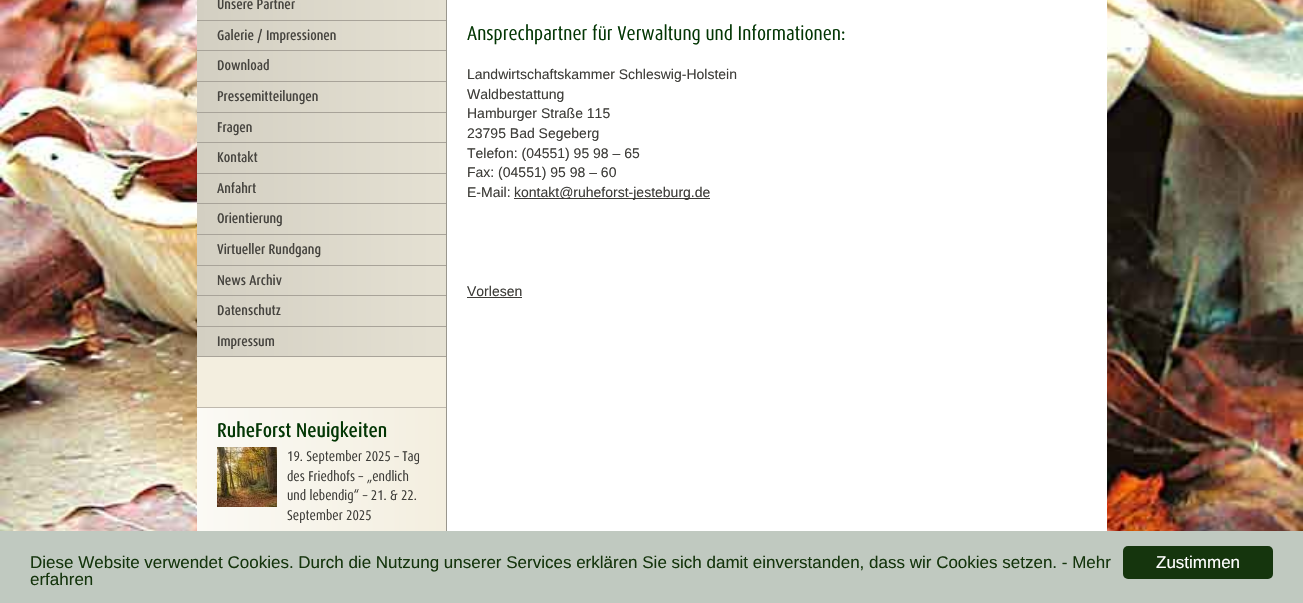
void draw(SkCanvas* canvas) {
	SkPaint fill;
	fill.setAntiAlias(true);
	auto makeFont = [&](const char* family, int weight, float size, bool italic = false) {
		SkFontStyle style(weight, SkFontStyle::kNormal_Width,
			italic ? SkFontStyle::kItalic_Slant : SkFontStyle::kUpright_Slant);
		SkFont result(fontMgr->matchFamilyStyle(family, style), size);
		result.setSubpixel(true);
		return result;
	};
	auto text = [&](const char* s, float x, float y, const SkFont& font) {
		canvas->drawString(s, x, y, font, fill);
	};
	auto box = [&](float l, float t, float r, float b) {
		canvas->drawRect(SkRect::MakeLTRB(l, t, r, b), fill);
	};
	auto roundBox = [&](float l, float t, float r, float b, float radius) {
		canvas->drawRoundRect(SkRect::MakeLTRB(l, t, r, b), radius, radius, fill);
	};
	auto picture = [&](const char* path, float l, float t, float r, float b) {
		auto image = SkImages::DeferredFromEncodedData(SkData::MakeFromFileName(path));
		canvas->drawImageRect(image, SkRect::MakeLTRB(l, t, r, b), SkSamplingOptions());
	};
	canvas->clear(0xFFFFFFFF);
	picture("image0.png", 0, 0, 1303, 531);
	fill.setColor(0xFFF3EEDF);
	box(197, 357, 446, 407);
	fill.setColor(0xFF99968D);
	box(446, 0, 447, 531);
	{
		const SkColor colors[] = {0xFFD3CFC2, 0xFFE5E1D3};
		const float stops[] = {0, 1};
		const SkPoint ends[] = {{197, 66}, {446, 65}};
		fill.setShader(SkGradientShader::MakeLinear(ends, colors, stops, 2, SkTileMode::kClamp));
		fill.setAlpha(255);
	}
	box(197, 0, 446, 356);
	fill.setShader(nullptr);
	fill.setColor(0xFFA8A399);
	box(197, 356, 446, 357);
	box(197, 20, 446, 21);
	box(197, 50, 446, 51);
	box(197, 81, 446, 82);
	box(197, 112, 446, 113);
	box(197, 142, 446, 143);
	box(197, 173, 446, 174);
	box(197, 203, 446, 204);
	box(197, 234, 446, 235);
	box(197, 265, 446, 266);
	box(197, 295, 446, 296);
	box(197, 326, 446, 327);
	{
		const SkColor colors[] = {0xFFFBFAF5, 0xFFF3EEDF};
		const float stops[] = {0, 1};
		const SkPoint ends[] = {{197, 472}, {446, 472}};
		fill.setShader(SkGradientShader::MakeLinear(ends, colors, stops, 2, SkTileMode::kClamp));
		fill.setAlpha(255);
	}
	box(197, 408, 446, 531);
	fill.setShader(nullptr);
	fill.setColor(0xFFBEB8AD);
	box(197, 407, 446, 408);
	picture("image1.png", 217, 447, 277, 507);
	fill.setColor(0xFFFFFFFF);
	box(447, 0, 1107, 531);
	fill.setColor(0xFF3E3D39);
	box(514, 198, 710, 199);
	box(467, 297, 522, 298);
	fill.setColor(0xFFC0C9C0);
	box(0, 531, 1303, 603);
	fill.setColor(0xFF15350D);
	roundBox(1123, 546, 1273, 579, 5);
	auto font1 = makeFont("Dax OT", 500, 14);
	fill.setColor(0xFF46443F);
	text("Unsere Partner", 217, 9, font1);
	text("Galerie / Impressionen", 217, 40, font1);
	text("Download", 217, 70, font1);
	text("Pressemitteilungen", 217, 101, font1);
	text("Fragen", 217, 132, font1);
	text("Kontakt", 217, 162, font1);
	text("Anfahrt", 217, 193, font1);
	text("Orientierung", 217, 223, font1);
	text("Virtueller Rundgang", 217, 254, font1);
	text("News Archiv", 217, 285, font1);
	text("Datenschutz", 217, 315, font1);
	text("Impressum", 217, 346, font1);
	auto font2 = makeFont("Dax OT", 500, 20);
	fill.setColor(0xFF033604);
	text("RuheForst Neuigkeiten", 217, 437, font2);
	auto font3 = makeFont("Dax OT", 400, 14);
	fill.setColor(0xFF3E3D39);
	text("19. September 2025 – Tag", 287, 461, font3);
	text("des Friedhofs – „endlich", 287, 481, font3);
	text("und lebendig“ – 21. & 22.", 287, 500, font3);
	text("September 2025", 287, 520, font3);
	auto font4 = makeFont("Dax OT", 400, 20);
	fill.setColor(0xFF033604);
	text("Ansprechpartner für Verwaltung und Informationen:", 467, 40, font4);
	auto font5 = makeFont("Liberation Sans", 400, 14);
	fill.setColor(0xFF3E3D39);
	text("Landwirtschaftskammer Schleswig-Holstein", 467, 79, font5);
	text("Waldbestattung", 467, 99, font5);
	text("Hamburger Straße 115", 467, 118, font5);
	text("23795 Bad Segeberg", 467, 138, font5);
	text("Telefon: (04551) 95 98 – 65", 467, 158, font5);
	text("Fax: (04551) 95 98 – 60", 467, 177, font5);
	text("E-Mail:", 467, 197, font5);
	text("kontakt@ruheforst-jesteburg.de", 514, 197, font5);
	text("Vorlesen", 467, 296, font5);
	auto font6 = makeFont("Liberation Sans", 400, 17);
	fill.setColor(0xFF15350D);
	text("Diese Website verwendet Cookies. Durch die Nutzung unserer Services erklären Sie sich damit einverstanden, dass wir Cookies setzen. - Mehr", 30, 568, font6);
	text("erfahren", 30, 585, font6);
	fill.setColor(0xFFFFFFFF);
	text("Zustimmen", 1156, 568, font6);
}
